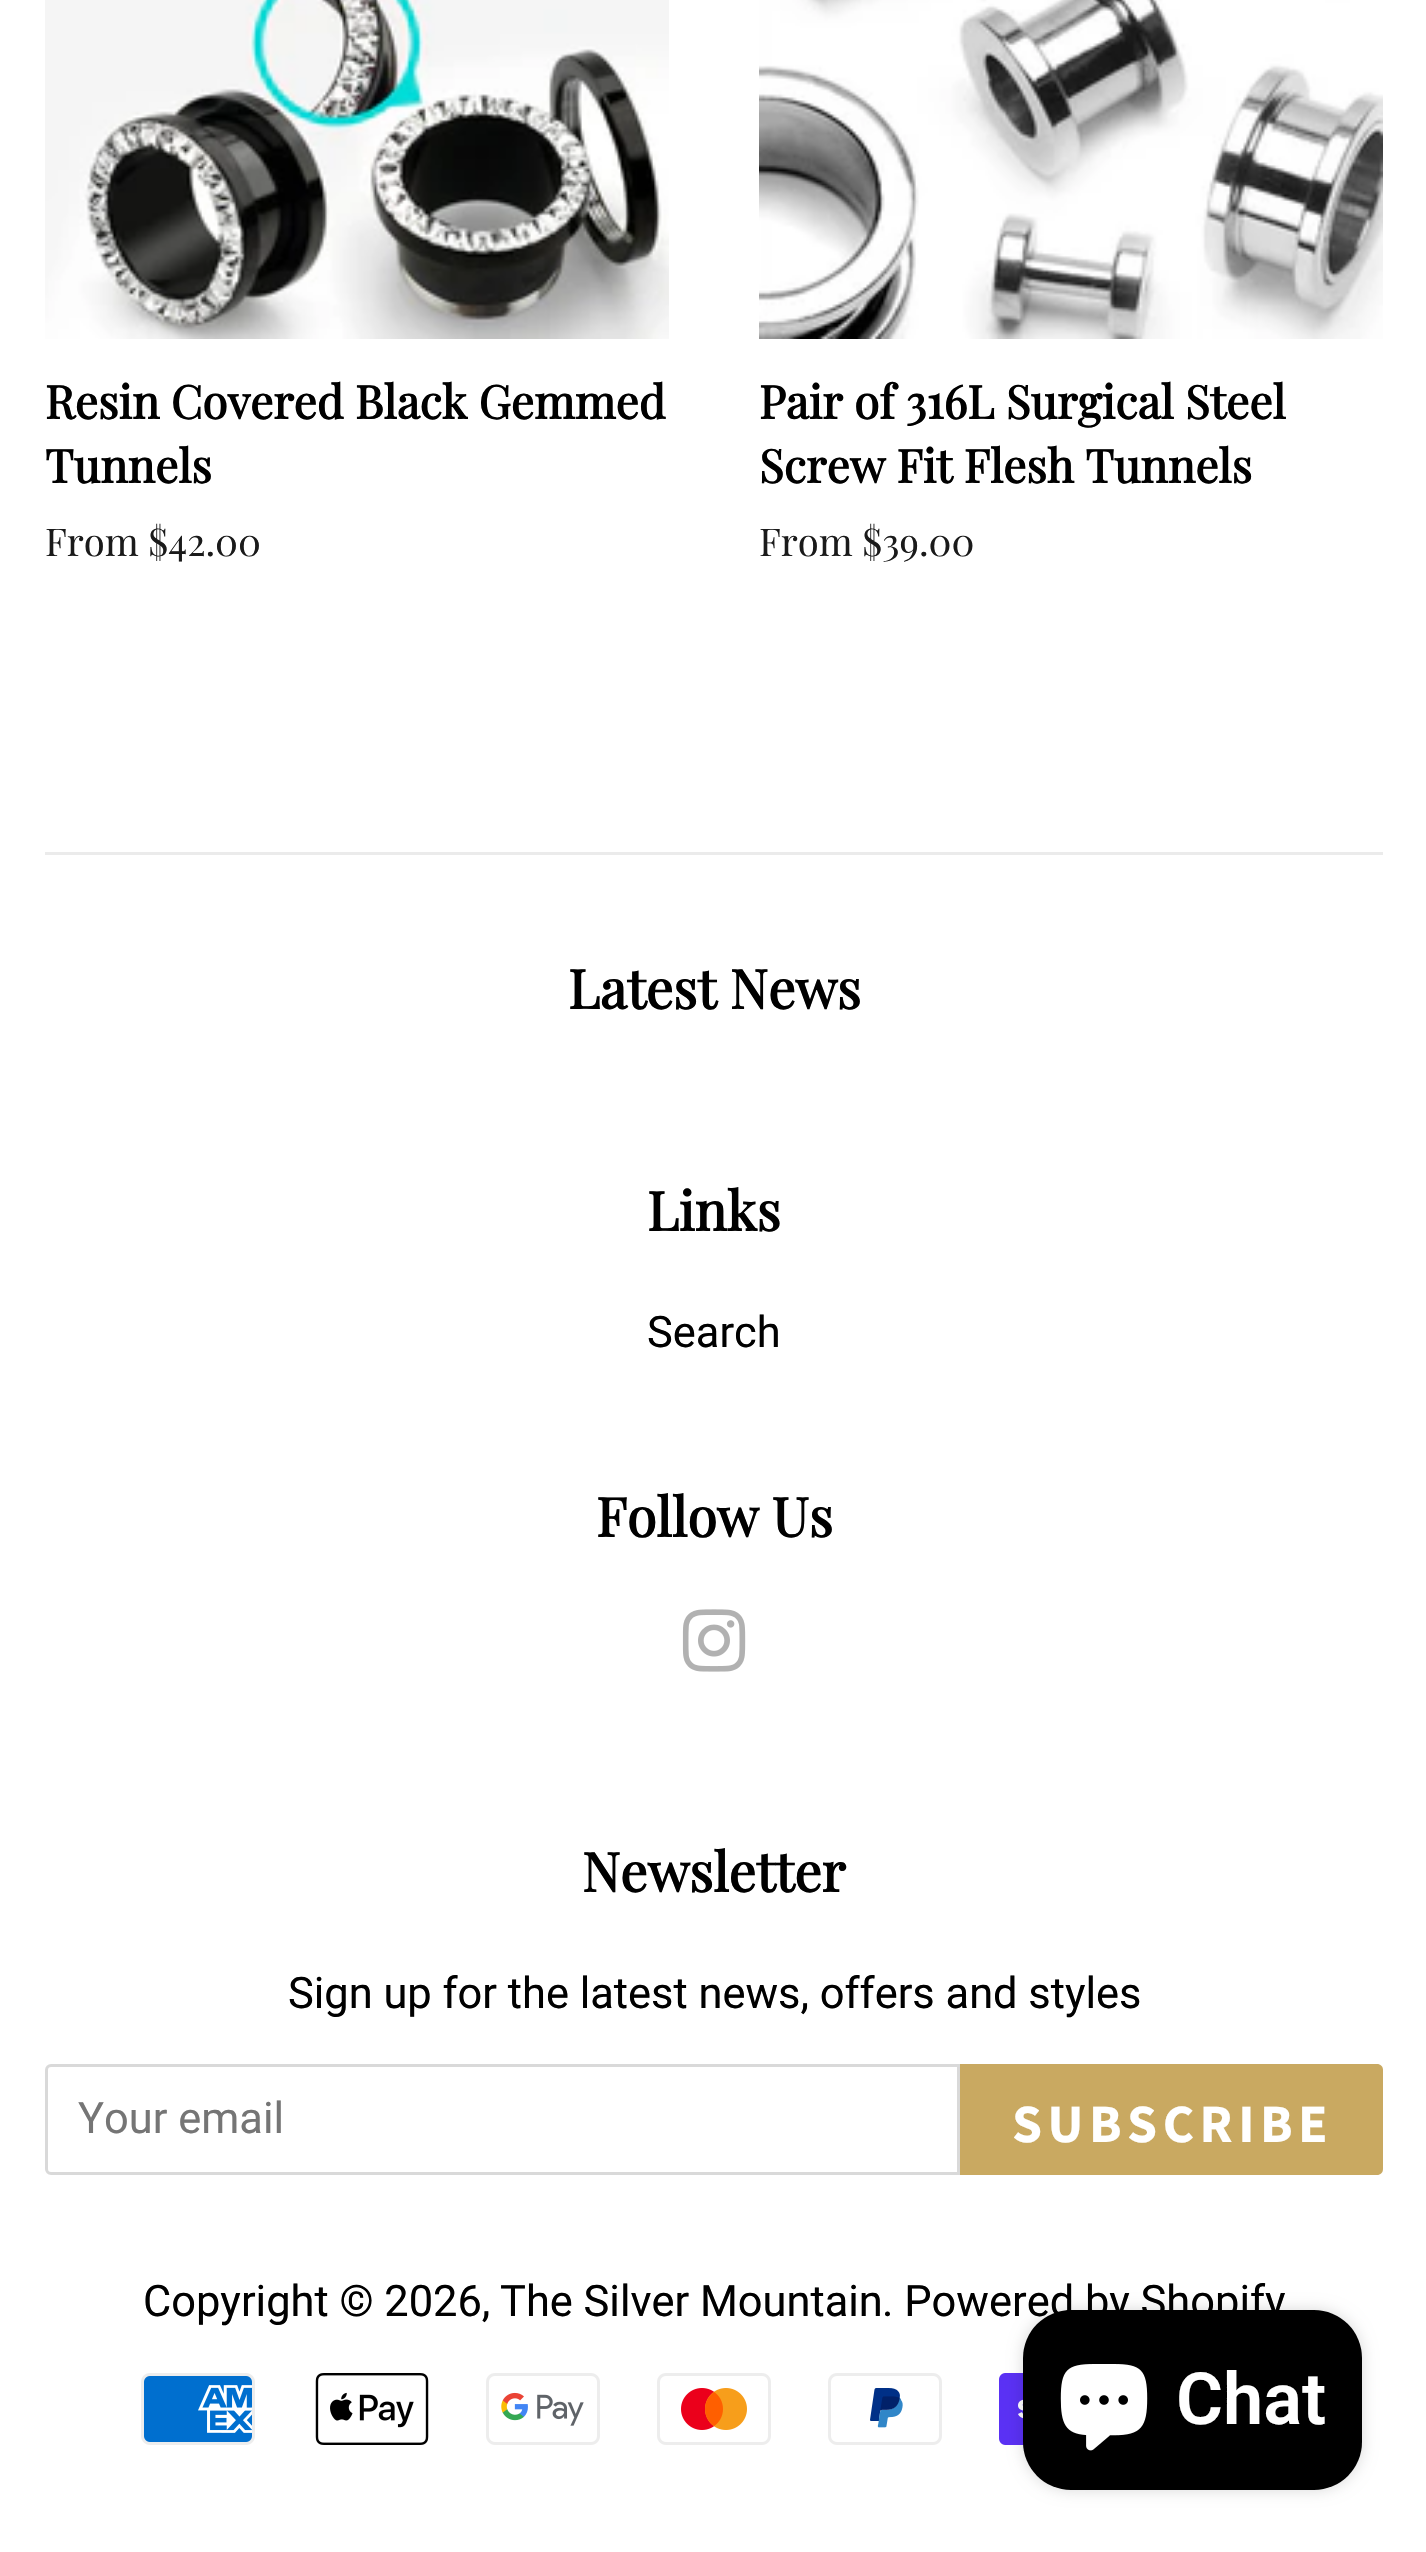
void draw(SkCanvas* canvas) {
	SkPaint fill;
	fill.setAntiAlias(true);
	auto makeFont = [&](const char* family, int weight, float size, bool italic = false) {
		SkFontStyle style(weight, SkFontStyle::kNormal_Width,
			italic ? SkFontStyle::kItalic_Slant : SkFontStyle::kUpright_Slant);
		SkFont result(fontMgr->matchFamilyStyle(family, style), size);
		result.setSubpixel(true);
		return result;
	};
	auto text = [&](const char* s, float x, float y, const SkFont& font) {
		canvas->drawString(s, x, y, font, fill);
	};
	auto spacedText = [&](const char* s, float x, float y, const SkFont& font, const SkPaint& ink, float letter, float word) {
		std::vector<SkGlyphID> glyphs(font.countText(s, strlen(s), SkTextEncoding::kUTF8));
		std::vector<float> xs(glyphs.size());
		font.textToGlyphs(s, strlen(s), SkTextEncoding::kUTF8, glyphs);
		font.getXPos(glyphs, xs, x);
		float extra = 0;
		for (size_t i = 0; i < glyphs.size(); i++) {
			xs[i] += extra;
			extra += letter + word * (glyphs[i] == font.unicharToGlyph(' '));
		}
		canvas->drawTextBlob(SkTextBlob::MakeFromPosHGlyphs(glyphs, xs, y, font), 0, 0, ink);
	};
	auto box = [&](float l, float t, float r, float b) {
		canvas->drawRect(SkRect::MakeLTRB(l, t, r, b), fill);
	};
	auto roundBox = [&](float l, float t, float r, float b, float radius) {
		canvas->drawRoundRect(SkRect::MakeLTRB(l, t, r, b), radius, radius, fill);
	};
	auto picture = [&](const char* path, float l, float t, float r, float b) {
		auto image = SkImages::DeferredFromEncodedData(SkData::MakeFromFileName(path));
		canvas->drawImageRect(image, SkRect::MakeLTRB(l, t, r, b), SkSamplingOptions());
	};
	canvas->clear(0xFFFFFFFF);
	picture("image0.png", 45, 0, 669, 339);
	picture("image1.png", 759, 0, 1383, 339);
	fill.setColor(0xFFEBEBEB);
	box(45, 852, 1383, 855);
	picture("image2.png", 682, 1609, 746, 1672);
	fill.setStyle(SkPaint::kStroke_Style);
	fill.setStrokeWidth(3);
	fill.setColor(0xFFD9D9D9);
	canvas->drawPath(SkPathBuilder().moveTo(51, 2065.5f).lineTo(958.5f, 2065.5f).lineTo(958.5f, 2173.5f).lineTo(51, 2173.5f).cubicTo(48.5f, 2173.5f, 46.5f, 2171.5f, 46.5f, 2169).lineTo(46.5f, 2070).cubicTo(46.5f, 2067.5f, 48.5f, 2065.5f, 51, 2065.5f).close().detach(), fill);
	fill.setStyle(SkPaint::kFill_Style);
	fill.setColor(0xFFC9A961);
	canvas->drawPath(SkPathBuilder().moveTo(960, 2064).lineTo(1377, 2064).cubicTo(1380.5f, 2064, 1383, 2066.5f, 1383, 2070).lineTo(1383, 2169).cubicTo(1383, 2172.5f, 1380.5f, 2175, 1377, 2175).lineTo(960, 2175).close().detach(), fill);
	picture("image3.png", 141, 2373, 255, 2445);
	picture("image4.png", 315, 2373, 429, 2445);
	picture("image5.png", 486, 2373, 600, 2445);
	picture("image6.png", 657, 2373, 771, 2445);
	picture("image7.png", 828, 2373, 942, 2445);
	picture("image8.png", 999, 2373, 1024, 2445);
	fill.setColor(0x26000000);
	fill.setMaskFilter(SkMaskFilter::MakeBlur(kNormal_SkBlurStyle, 7.5f));
	canvas->drawRoundRect(SkRect::MakeLTRB(1023, 2310, 1362, 2490), 48, 48, fill);
	fill.setMaskFilter(nullptr);
	fill.setColor(0xFF000000);
	roundBox(1023, 2310, 1362, 2490, 48);
	picture("image9.png", 1060, 2364, 1148, 2451);
	auto font1 = makeFont("Playfair Display", 700, 45.9f);
	text("Resin Covered Black Gemmed", 45, 419, font1);
	text("Tunnels", 45, 483, font1);
	auto font2 = makeFont("Playfair Display", 400, 38.25f);
	fill.setColor(0xFF1A1A1A);
	text("From $42.00", 45, 556, font2);
	fill.setColor(0xFF000000);
	text("Pair of 316L Surgical Steel", 759, 419, font1);
	text("Screw Fit Flesh Tunnels", 759, 483, font1);
	fill.setColor(0xFF1A1A1A);
	text("From $39.00", 759, 556, font2);
	auto font3 = makeFont("Playfair Display", 700, 54);
	fill.setColor(0xFF000000);
	text("Latest News", 568, 1009, font3);
	text("Links", 647, 1231, font3);
	auto font4 = makeFont("Roboto", 400, 43.4f);
	text("Search", 647, 1347, font4);
	text("Follow Us", 596, 1537, font3);
	text("Newsletter", 582, 1892, font3);
	text("Sign up for the latest news, offers and styles", 288, 2008, font4);
	fill.setColor(0xFF757575);
	text("Your email", 78, 2133, font4);
	auto font5 = makeFont("Source Sans Pro", 700, 54);
	fill.setColor(0xFFFFFFFF);
	spacedText("SUBSCRIBE", 1012, 2142, font5, fill, 5.5f, 0);
	fill.setColor(0xFF000000);
	text("Copyright © 2026,", 143, 2316, font4);
	text("The Silver Mountain", 500, 2316, font4);
	text(". Powered by Shopify", 882, 2316, font4);
	auto font6 = makeFont("Roboto", 600, 72);
	fill.setColor(0xFFFFFFFF);
	text("Chat", 1176, 2424, font6);
}
